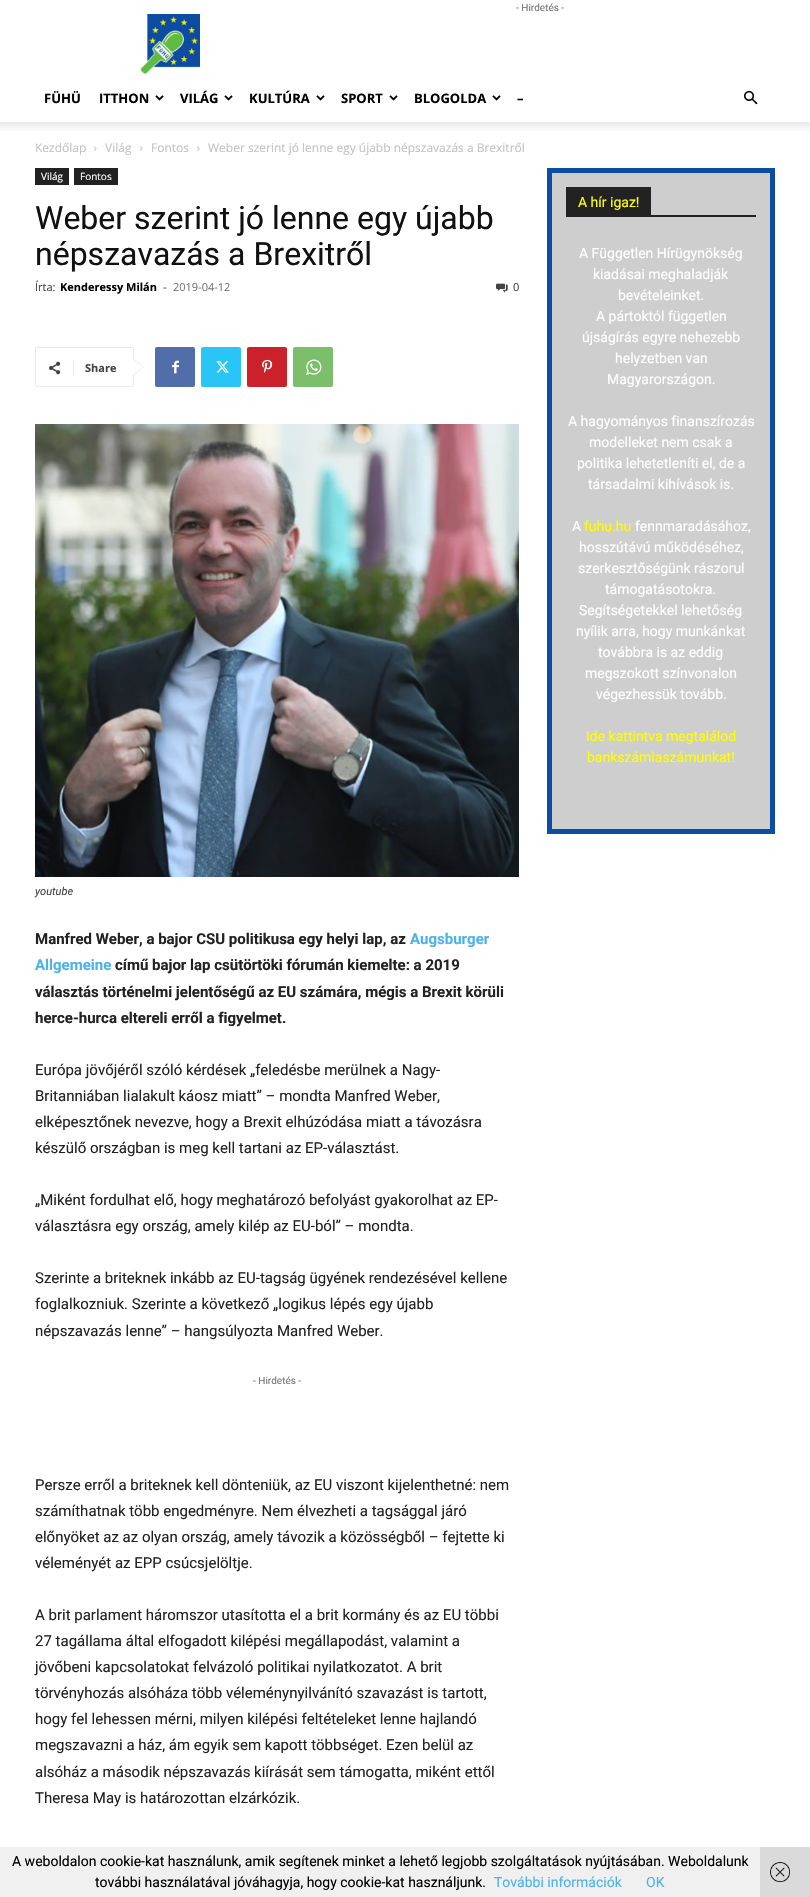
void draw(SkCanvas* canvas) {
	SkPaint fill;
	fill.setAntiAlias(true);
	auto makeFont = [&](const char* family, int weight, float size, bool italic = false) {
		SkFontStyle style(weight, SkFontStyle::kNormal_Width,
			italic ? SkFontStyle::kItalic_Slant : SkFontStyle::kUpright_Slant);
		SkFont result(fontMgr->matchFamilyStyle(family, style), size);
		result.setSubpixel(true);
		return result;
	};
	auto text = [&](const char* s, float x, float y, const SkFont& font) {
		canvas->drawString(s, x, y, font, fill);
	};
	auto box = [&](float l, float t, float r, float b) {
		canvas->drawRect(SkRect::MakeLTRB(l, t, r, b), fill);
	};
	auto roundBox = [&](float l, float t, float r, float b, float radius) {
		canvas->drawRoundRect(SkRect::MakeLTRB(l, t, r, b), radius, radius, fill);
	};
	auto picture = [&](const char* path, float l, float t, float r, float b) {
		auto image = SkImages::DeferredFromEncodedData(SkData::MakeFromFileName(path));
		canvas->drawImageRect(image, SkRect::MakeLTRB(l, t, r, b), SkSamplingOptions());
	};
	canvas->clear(0xFFFFFFFF);
	picture("image0.png", 140, 14, 200, 74);
	picture("image1.png", 155, 95, 164, 101);
	picture("image1.png", 224, 95, 233, 101);
	picture("image1.png", 316, 95, 325, 101);
	picture("image1.png", 389, 95, 398, 101);
	picture("image1.png", 492, 95, 501, 101);
	picture("image2.png", 744, 90, 758, 105);
	picture("image3.png", 0, 122, 810, 131);
	picture("image4.png", 94, 146, 97, 151);
	picture("image4.png", 140, 146, 143, 151);
	picture("image4.png", 197, 146, 200, 151);
	fill.setColor(0xFF222222);
	box(35, 168, 69, 185);
	box(74, 168, 118, 185);
	picture("image5.png", 496, 283, 508, 293);
	fill.setStyle(SkPaint::kStroke_Style);
	fill.setStrokeWidth(1);
	fill.setColor(0xFFE9E9E9);
	canvas->drawRoundRect(SkRect::MakeLTRB(35.5f, 347.5f, 133.5f, 386.5f), 1.5f, 1.5f, fill);
	fill.setStyle(SkPaint::kFill_Style);
	canvas->drawPath(SkPathBuilder().moveTo(133, 376).lineTo(133, 358).lineTo(144, 367).close().detach(), fill);
	picture("image6.png", 49, 361, 61, 375);
	fill.setColor(0xFFEBEBEB);
	box(73, 360, 74, 376);
	fill.setColor(0xFFFFFFFF);
	canvas->drawPath(SkPathBuilder().moveTo(133, 375).lineTo(133, 359).lineTo(143, 367).close().detach(), fill);
	fill.setColor(0xFF516EAB);
	roundBox(155, 347, 195, 387, 2);
	picture("image7.png", 172, 360, 179, 374);
	fill.setColor(0xFF29C5F6);
	roundBox(201, 347, 241, 387, 2);
	picture("image8.png", 216, 361, 229, 373);
	fill.setColor(0xFFCA212A);
	roundBox(247, 347, 287, 387, 2);
	picture("image9.png", 262, 359, 273, 373);
	fill.setColor(0xFF7BBF6A);
	roundBox(293, 347, 333, 387, 2);
	picture("image10.png", 306, 359, 322, 375);
	picture("image11.png", 35, 424, 519, 877);
	fill.setColor(0xFFCECECE);
	canvas->drawRect(SkRect::MakeLTRB(549.5f, 170.5f, 772.5f, 831.5f), fill);
	fill.setStyle(SkPaint::kStroke_Style);
	fill.setStrokeWidth(5);
	fill.setColor(0xFF0C4CA3);
	canvas->drawRect(SkRect::MakeLTRB(549.5f, 170.5f, 772.5f, 831.5f), fill);
	fill.setStyle(SkPaint::kFill_Style);
	fill.setColor(0xFF222222);
	box(566, 215, 756, 217);
	box(566, 187, 651, 215);
	fill.setColor(0xE6EEEEEE);
	box(0, 1847, 760, 1897);
	fill.setColor(0xFFDADADA);
	box(760, 1847, 810, 1897);
	picture("image12.png", 770, 1862, 790, 1882);
	auto font1 = makeFont("Roboto", 400, 10);
	fill.setColor(0xFF767676);
	text("- Hirdetés -", 516, 11, font1);
	auto font2 = makeFont("Open Sans", 700, 13);
	fill.setColor(0xFF000000);
	text("FÜHÜ", 44, 103, font2);
	text("ITTHON", 99, 103, font2);
	text("VILÁG", 180, 103, font2);
	text("KULTÚRA", 249, 103, font2);
	text("SPORT", 341, 103, font2);
	text("BLOGOLDA", 414, 103, font2);
	text("–", 517, 103, font2);
	auto font3 = makeFont("Open Sans", 400, 12);
	fill.setColor(0xFFC3C3C3);
	text("Kezdőlap", 35, 152, font3);
	text("Világ", 105, 152, font3);
	text("Fontos", 151, 152, font3);
	text("Weber szerint jó lenne egy újabb népszavazás a Brexitről", 208, 152, font3);
	auto font4 = makeFont("Open Sans", 400, 10);
	fill.setColor(0xFFFFFFFF);
	text("Világ", 41, 180, font4);
	text("Fontos", 80, 180, font4);
	auto font5 = makeFont("Roboto", 400, 32);
	fill.setColor(0xFF111111);
	text("Weber szerint jó lenne egy újabb", 35, 229, font5);
	text("népszavazás a Brexitről", 35, 265, font5);
	auto font6 = makeFont("Open Sans", 400, 11);
	fill.setColor(0xFF444444);
	text("Írta:", 35, 291, font6);
	auto font7 = makeFont("Open Sans", 700, 11);
	fill.setColor(0xFF000000);
	text("Kenderessy Milán", 60, 291, font7);
	fill.setColor(0xFF444444);
	text("-", 163, 291, font6);
	fill.setColor(0xFF767676);
	text("2019-04-12", 173, 291, font6);
	fill.setColor(0xFF444444);
	text("0", 513, 291, font6);
	text("Share", 85, 372, font7);
	auto font8 = makeFont("Roboto", 400, 11, true);
	text("youtube", 35, 895, font8);
	auto font9 = makeFont("Roboto", 700, 15);
	fill.setColor(0xFF222222);
	text("Manfred Weber, a bajor CSU politikusa egy helyi lap, az", 35, 944, font9);
	fill.setColor(0xFF4DB2EC);
	text("Augsburger", 410, 944, font9);
	text("Allgemeine", 35, 970, font9);
	fill.setColor(0xFF222222);
	text("című bajor lap csütörtöki fórumán kiemelte: a 2019", 115, 970, font9);
	text("választás történelmi jelentőségű az EU számára, mégis a Brexit körüli", 35, 997, font9);
	text("herce-hurca eltereli erről a figyelmet.", 35, 1023, font9);
	auto font10 = makeFont("Roboto", 400, 15);
	text("Európa jövőjéről szóló kérdések „feledésbe merülnek a Nagy-", 35, 1075, font10);
	text("Britanniában lialakult káosz miatt” – mondta Manfred Weber,", 35, 1101, font10);
	text("elképesztőnek nevezve, hogy a Brexit elhúzódása miatt a távozásra", 35, 1127, font10);
	text("készülő országban is meg kell tartani az EP-választást.", 35, 1153, font10);
	text("„Miként fordulhat elő, hogy meghatározó befolyást gyakorolhat az EP-", 35, 1205, font10);
	text("választásra egy ország, amely kilép az EU-ból” – mondta.", 35, 1231, font10);
	text("Szerinte a briteknek inkább az EU-tagság ügyének rendezésével kellene", 35, 1283, font10);
	text("foglalkozniuk. Szerinte a következő „logikus lépés egy újabb", 35, 1309, font10);
	text("népszavazás lenne” – hangsúlyozta Manfred Weber.", 35, 1336, font10);
	fill.setColor(0xFF767676);
	text("- Hirdetés -", 253, 1384, font1);
	fill.setColor(0xFF222222);
	text("Persze erről a briteknek kell dönteniük, az EU viszont kijelenthetné: nem", 35, 1490, font10);
	text("számíthatnak több engedményre. Nem élvezheti a tagsággal járó", 35, 1516, font10);
	text("előnyöket az az olyan ország, amely távozik a közösségből – fejtette ki", 35, 1542, font10);
	text("véleményét az EPP csúcsjelöltje.", 35, 1568, font10);
	text("A brit parlament háromszor utasította el a brit kormány és az EU többi", 35, 1620, font10);
	text("27 tagállama által elfogadott kilépési megállapodást, valamint a", 35, 1646, font10);
	text("jövőbeni kapcsolatokat felvázoló politikai nyilatkozatot. A brit", 35, 1672, font10);
	text("törvényhozás alsóháza több véleménynyilvánító szavazást is tartott,", 35, 1698, font10);
	text("hogy fel lehessen mérni, milyen kilépési feltételeket lenne hajlandó", 35, 1724, font10);
	text("megszavazni a ház, ám egyik sem kapott többséget. Ezen belül az", 35, 1750, font10);
	text("alsóház a második népszavazás kiírását sem támogatta, miként ettől", 35, 1777, font10);
	text("Theresa May is határozottan elzárkózik.", 35, 1803, font10);
	auto font11 = makeFont("Roboto", 400, 14);
	fill.setColor(0xFFFFFF00);
	text("A hír igaz!", 578, 207, font11);
	fill.setColor(0xFFFFFFFF);
	text("A Független Hírügynökség", 579, 258, font11);
	text("kiadásai meghaladják", 593, 279, font11);
	text("bevételeinket.", 618, 300, font11);
	text("A pártoktól független", 596, 321, font11);
	text("újságírás egyre nehezebb", 582, 342, font11);
	text("helyzetben van", 615, 363, font11);
	text("Magyarországon.", 607, 384, font11);
	text("A hagyományos finanszírozás", 568, 426, font11);
	text("modelleket nem csak a", 589, 447, font11);
	text("politika lehetetleníti el, de a", 577, 468, font11);
	text("társadalmi kihívások is.", 588, 489, font11);
	text("A", 572, 531, font11);
	fill.setColor(0xFFFFFF00);
	text("fuhu.hu", 584, 531, font11);
	fill.setColor(0xFFFFFFFF);
	text("fennmaradásához,", 635, 531, font11);
	text("hosszútávú működéséhez,", 579, 552, font11);
	text("szerkesztőségünk rászorul", 578, 573, font11);
	text("támogatásotokra.", 605, 594, font11);
	text("Segítségetekkel lehetőség", 579, 615, font11);
	text("nyílik arra, hogy munkánkat", 576, 636, font11);
	text("továbbra is az eddig", 598, 657, font11);
	text("megszokott színvonalon", 585, 678, font11);
	text("végezhessük tovább.", 596, 699, font11);
	fill.setColor(0xFFFFFF00);
	text("Ide kattintva megtalálod", 586, 741, font11);
	text("bankszámlaszámunkat!", 587, 762, font11);
	fill.setColor(0xFF000000);
	text("A weboldalon cookie-kat használunk, amik segítenek minket a lehető legjobb szolgáltatások nyújtásában. Weboldalunk", 12, 1866, font11);
	text("további használatával jóváhagyja, hogy cookie-kat használjunk.", 95, 1887, font11);
	fill.setColor(0xFF4DB2EC);
	text("További információk", 494, 1887, font11);
	text("OK", 646, 1887, font11);
}
